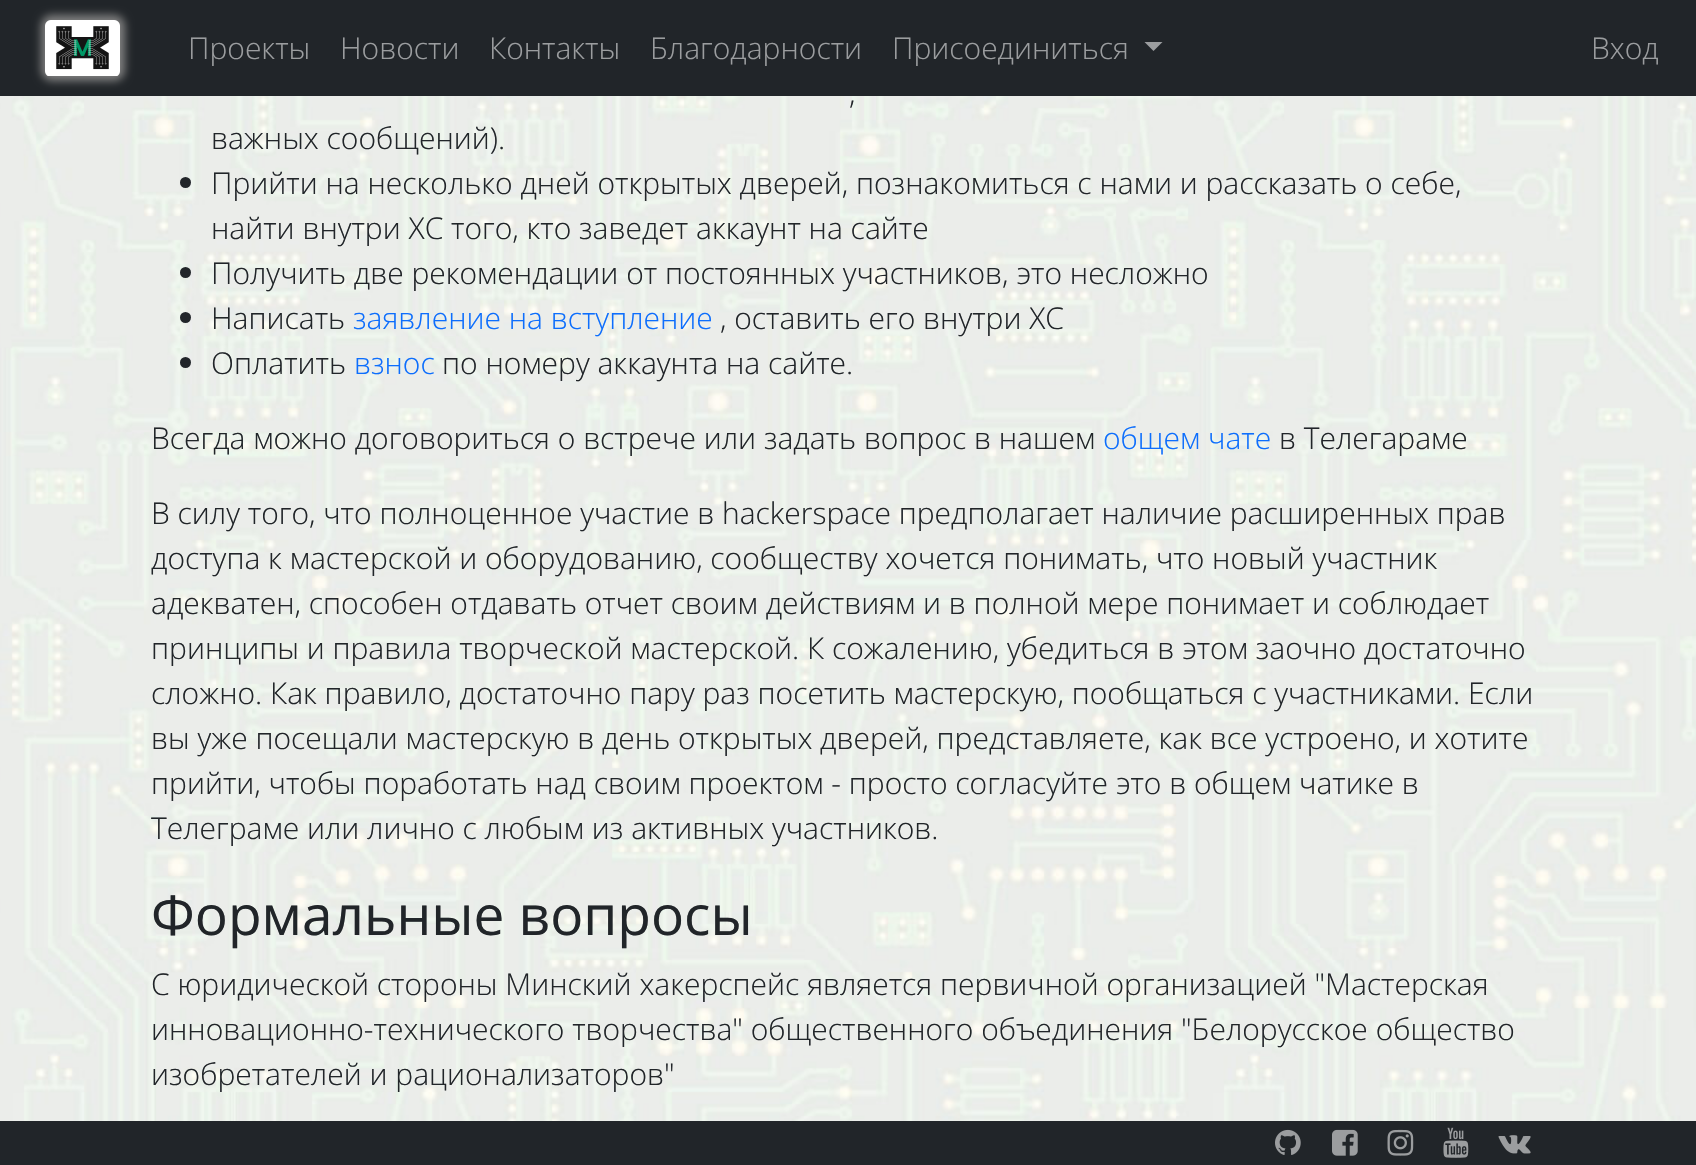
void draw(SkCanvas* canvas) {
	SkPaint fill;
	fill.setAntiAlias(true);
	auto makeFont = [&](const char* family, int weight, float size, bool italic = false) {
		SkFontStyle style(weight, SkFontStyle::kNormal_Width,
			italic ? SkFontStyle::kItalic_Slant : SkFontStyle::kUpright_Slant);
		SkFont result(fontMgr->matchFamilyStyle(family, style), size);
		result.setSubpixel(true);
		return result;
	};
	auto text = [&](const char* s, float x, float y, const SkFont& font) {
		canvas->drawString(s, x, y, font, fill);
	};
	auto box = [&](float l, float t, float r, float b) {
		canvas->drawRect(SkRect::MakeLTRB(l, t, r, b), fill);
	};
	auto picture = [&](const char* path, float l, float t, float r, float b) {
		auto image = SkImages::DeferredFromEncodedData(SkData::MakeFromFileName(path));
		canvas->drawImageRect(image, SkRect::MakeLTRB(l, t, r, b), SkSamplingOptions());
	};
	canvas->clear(0xFFFFFFFF);
	picture("image0.png", 0, 96, 1696, 1121);
	fill.setColor(0xFF212529);
	box(0, 0, 1696, 96);
	fill.setColor(0xFF808080);
	fill.setMaskFilter(SkMaskFilter::MakeBlur(kNormal_SkBlurStyle, 4.5f));
	canvas->drawRoundRect(SkRect::MakeLTRB(41, 15, 125, 81), 11, 11, fill);
	fill.setMaskFilter(nullptr);
	picture("image1.png", 45, 20, 120, 76);
	fill.setColor(0xFF9B9D9F);
	canvas->drawPath(SkPathBuilder().moveTo(1144.5f, 42).lineTo(1162.5f, 42).lineTo(1153.5f, 51).close().detach(), fill);
	fill.setColor(0xFF212529);
	canvas->drawCircle(185.5f, 182.5f, 5.5f, fill);
	canvas->drawCircle(185.5f, 272.5f, 5.5f, fill);
	canvas->drawCircle(185.5f, 317.5f, 5.5f, fill);
	canvas->drawCircle(185.5f, 362.5f, 5.5f, fill);
	box(0, 1121, 1696, 1165);
	picture("image2.png", 1275, 1129, 1301, 1155);
	picture("image3.png", 1332, 1129, 1358, 1156);
	picture("image4.png", 1387, 1129, 1414, 1156);
	picture("image5.png", 1443, 1127, 1469, 1158);
	picture("image6.png", 1498, 1135, 1531, 1154);
	auto font1 = makeFont("Open Sans", 300, 30);
	fill.setColor(0xFF9B9D9F);
	text("Проекты", 188, 59, font1);
	text("Новости", 340, 59, font1);
	text("Контакты", 489, 59, font1);
	text("Благодарности", 650, 59, font1);
	text("Присоединиться", 892, 59, font1);
	text("Вход", 1591, 59, font1);
	fill.setColor(0xFF212529);
	text(",", 849, 104, font1);
	text("важных сообщений).", 211, 149, font1);
	text("Прийти на несколько дней открытых дверей, познакомиться с нами и рассказать о себе,", 211, 194, font1);
	text("найти внутри ХС того, кто заведет аккаунт на сайте", 211, 239, font1);
	text("Получить две рекомендации от постоянных участников, это несложно", 211, 284, font1);
	text("Написать", 211, 329, font1);
	fill.setColor(0xFF0D6EFD);
	text("заявление на вступление", 353, 329, font1);
	fill.setColor(0xFF212529);
	text(", оставить его внутри ХС", 720, 329, font1);
	text("Оплатить", 211, 374, font1);
	fill.setColor(0xFF0D6EFD);
	text("взнос", 354, 374, font1);
	fill.setColor(0xFF212529);
	text("по номеру аккаунта на сайте.", 442, 374, font1);
	text("Всегда можно договориться о встрече или задать вопрос в нашем", 151, 449, font1);
	fill.setColor(0xFF0D6EFD);
	text("общем чате", 1103, 449, font1);
	fill.setColor(0xFF212529);
	text("в Телегараме", 1279, 449, font1);
	text("В силу того, что полноценное участие в hackerspace предполагает наличие расширенных прав", 151, 524, font1);
	text("доступа к мастерской и оборудованию, сообществу хочется понимать, что новый участник", 151, 569, font1);
	text("адeкватен, способен отдавать отчет своим действиям и в полной мере понимает и соблюдает", 151, 614, font1);
	text("принципы и правила творческой мастерской. К сожалению, убедиться в этом заочно достаточно", 151, 659, font1);
	text("сложно. Как правило, достаточно пару раз посетить мастерскую, пообщаться с участниками. Если", 151, 704, font1);
	text("вы уже посещали мастерскую в день открытых дверей, представляете, как все устроено, и хотите", 151, 749, font1);
	text("прийти, чтобы поработать над своим проектом - просто согласуйте это в общем чатике в", 151, 794, font1);
	text("Телеграме или лично с любым из активных участников.", 151, 839, font1);
	auto font2 = makeFont("Open Sans", 400, 55);
	text("Формальные вопросы", 151, 935, font2);
	text("С юридической стороны Минский хакерспейс является первичной организацией \"Мастерская", 151, 995, font1);
	text("инновационно-технического творчества\" общественного объединения \"Белорусское общество", 151, 1040, font1);
	text("изобретателей и рационализаторов\"", 151, 1085, font1);
}
